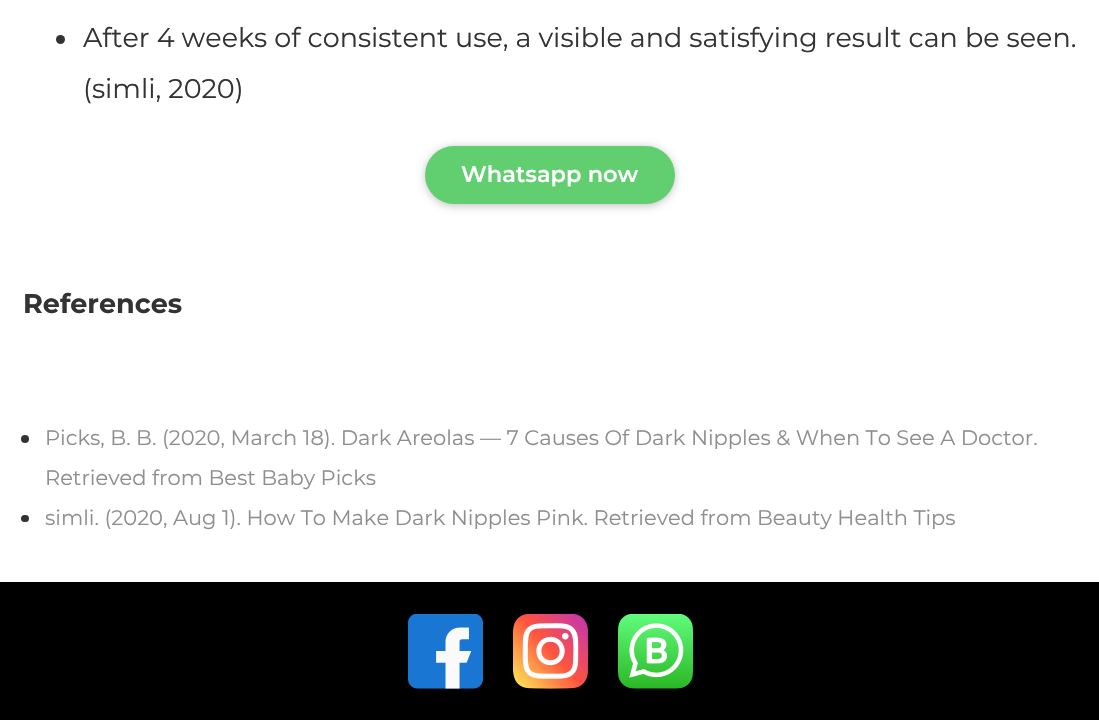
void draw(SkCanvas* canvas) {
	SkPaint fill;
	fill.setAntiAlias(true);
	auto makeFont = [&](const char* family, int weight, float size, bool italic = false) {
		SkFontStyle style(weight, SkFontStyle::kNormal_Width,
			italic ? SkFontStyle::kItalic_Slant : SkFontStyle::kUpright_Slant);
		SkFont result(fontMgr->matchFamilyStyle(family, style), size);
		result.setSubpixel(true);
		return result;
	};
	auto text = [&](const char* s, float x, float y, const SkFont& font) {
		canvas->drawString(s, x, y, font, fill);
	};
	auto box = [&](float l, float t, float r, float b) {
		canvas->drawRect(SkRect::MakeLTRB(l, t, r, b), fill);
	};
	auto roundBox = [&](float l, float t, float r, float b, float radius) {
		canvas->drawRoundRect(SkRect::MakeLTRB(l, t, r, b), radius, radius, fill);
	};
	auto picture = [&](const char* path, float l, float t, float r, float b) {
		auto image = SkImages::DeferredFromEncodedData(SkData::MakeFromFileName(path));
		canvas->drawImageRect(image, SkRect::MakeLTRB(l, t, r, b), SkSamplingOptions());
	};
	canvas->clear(0xFFFFFFFF);
	fill.setColor(0xFF333333);
	canvas->drawCircle(60.5f, 39.5f, 4.5f, fill);
	fill.setColor(0x3B000000);
	fill.setMaskFilter(SkMaskFilter::MakeBlur(kNormal_SkBlurStyle, 4));
	canvas->drawRoundRect(SkRect::MakeLTRB(425, 147, 675, 206), 29.5f, 29.5f, fill);
	fill.setMaskFilter(nullptr);
	fill.setColor(0xFF61CE70);
	roundBox(425, 146, 675, 204, 29);
	fill.setColor(0xFF333333);
	canvas->drawCircle(25, 439, 4, fill);
	roundBox(21, 515, 29, 522, 3.5f);
	fill.setColor(0xFF000000);
	box(0, 582, 1099, 720);
	picture("image0.png", 408, 614, 483, 689);
	picture("image1.png", 513, 614, 588, 689);
	picture("image2.png", 618, 614, 693, 689);
	auto font1 = makeFont("Montserrat", 400, 27);
	fill.setColor(0xFF333333);
	text("After 4 weeks of consistent use, a visible and satisfying result can be seen.", 83, 47, font1);
	text("(simli, 2020)", 83, 98, font1);
	auto font2 = makeFont("Montserrat", 600, 22.5f);
	fill.setColor(0xFFFFFFFF);
	text("Whatsapp now", 461, 182, font2);
	auto font3 = makeFont("Montserrat", 700, 27);
	fill.setColor(0xFF333333);
	text("References", 23, 313, font3);
	auto font4 = makeFont("Montserrat", 400, 21);
	fill.setColor(0xFF8E8E8E);
	text("Picks, B. B. (2020, March 18). Dark Areolas — 7 Causes Of Dark Nipples & When To See A Doctor.", 45, 445, font4);
	text("Retrieved from Best Baby Picks", 45, 485, font4);
	text("simli. (2020, Aug 1). How To Make Dark Nipples Pink. Retrieved from Beauty Health Tips", 45, 525, font4);
}
